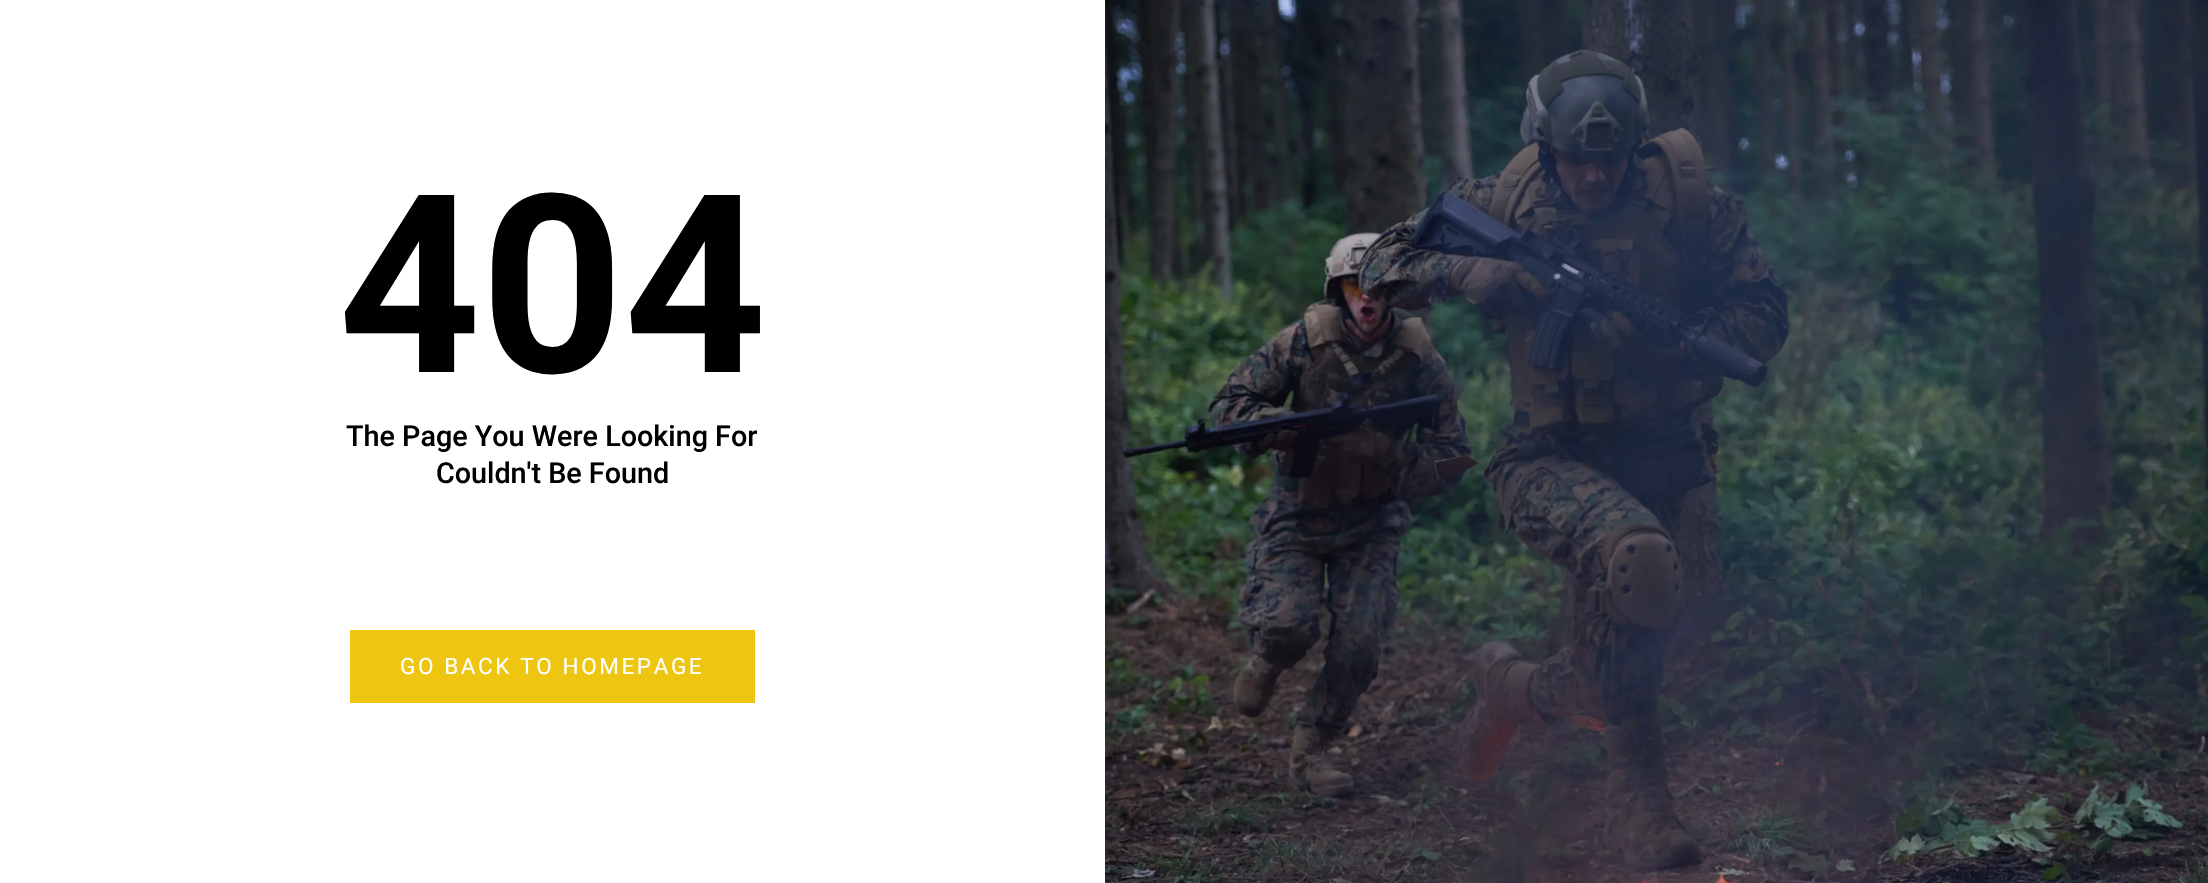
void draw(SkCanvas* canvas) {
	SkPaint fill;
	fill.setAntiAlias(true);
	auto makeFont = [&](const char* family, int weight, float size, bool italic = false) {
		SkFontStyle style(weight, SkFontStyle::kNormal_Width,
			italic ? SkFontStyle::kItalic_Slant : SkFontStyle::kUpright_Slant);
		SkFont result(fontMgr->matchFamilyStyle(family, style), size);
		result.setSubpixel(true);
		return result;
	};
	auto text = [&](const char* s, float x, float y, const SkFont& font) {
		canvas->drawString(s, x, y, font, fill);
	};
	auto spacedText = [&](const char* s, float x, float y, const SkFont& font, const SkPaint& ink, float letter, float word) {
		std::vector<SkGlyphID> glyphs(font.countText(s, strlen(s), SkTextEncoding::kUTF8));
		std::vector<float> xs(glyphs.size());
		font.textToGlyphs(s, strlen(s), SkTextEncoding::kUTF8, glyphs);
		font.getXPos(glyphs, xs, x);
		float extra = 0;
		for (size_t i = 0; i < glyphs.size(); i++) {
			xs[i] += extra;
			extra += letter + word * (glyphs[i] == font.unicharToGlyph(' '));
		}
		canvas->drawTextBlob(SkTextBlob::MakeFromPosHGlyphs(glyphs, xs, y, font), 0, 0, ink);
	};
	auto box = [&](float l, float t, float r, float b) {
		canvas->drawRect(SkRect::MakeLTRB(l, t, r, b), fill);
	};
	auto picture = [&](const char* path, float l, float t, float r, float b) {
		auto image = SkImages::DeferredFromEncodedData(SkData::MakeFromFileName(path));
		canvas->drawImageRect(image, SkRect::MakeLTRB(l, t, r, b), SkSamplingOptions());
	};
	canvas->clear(0xFFFFFFFF);
	fill.setColor(0xFFEEC611);
	box(350, 630, 755, 703);
	picture("image0.png", 1105, 0, 2208, 883);
	auto font1 = makeFont("Roboto", 700, 249);
	fill.setColor(0xFF000000);
	text("404", 338, 372, font1);
	auto font2 = makeFont("Roboto", 500, 28.75f);
	text("The Page You Were Looking For", 346, 446, font2);
	text("Couldn't Be Found", 436, 483, font2);
	auto font3 = makeFont("Roboto", 400, 22.5f);
	fill.setColor(0xFFFFFFFF);
	spacedText("GO BACK TO HOMEPAGE", 400, 674, font3, fill, 2.6f, 0);
}
